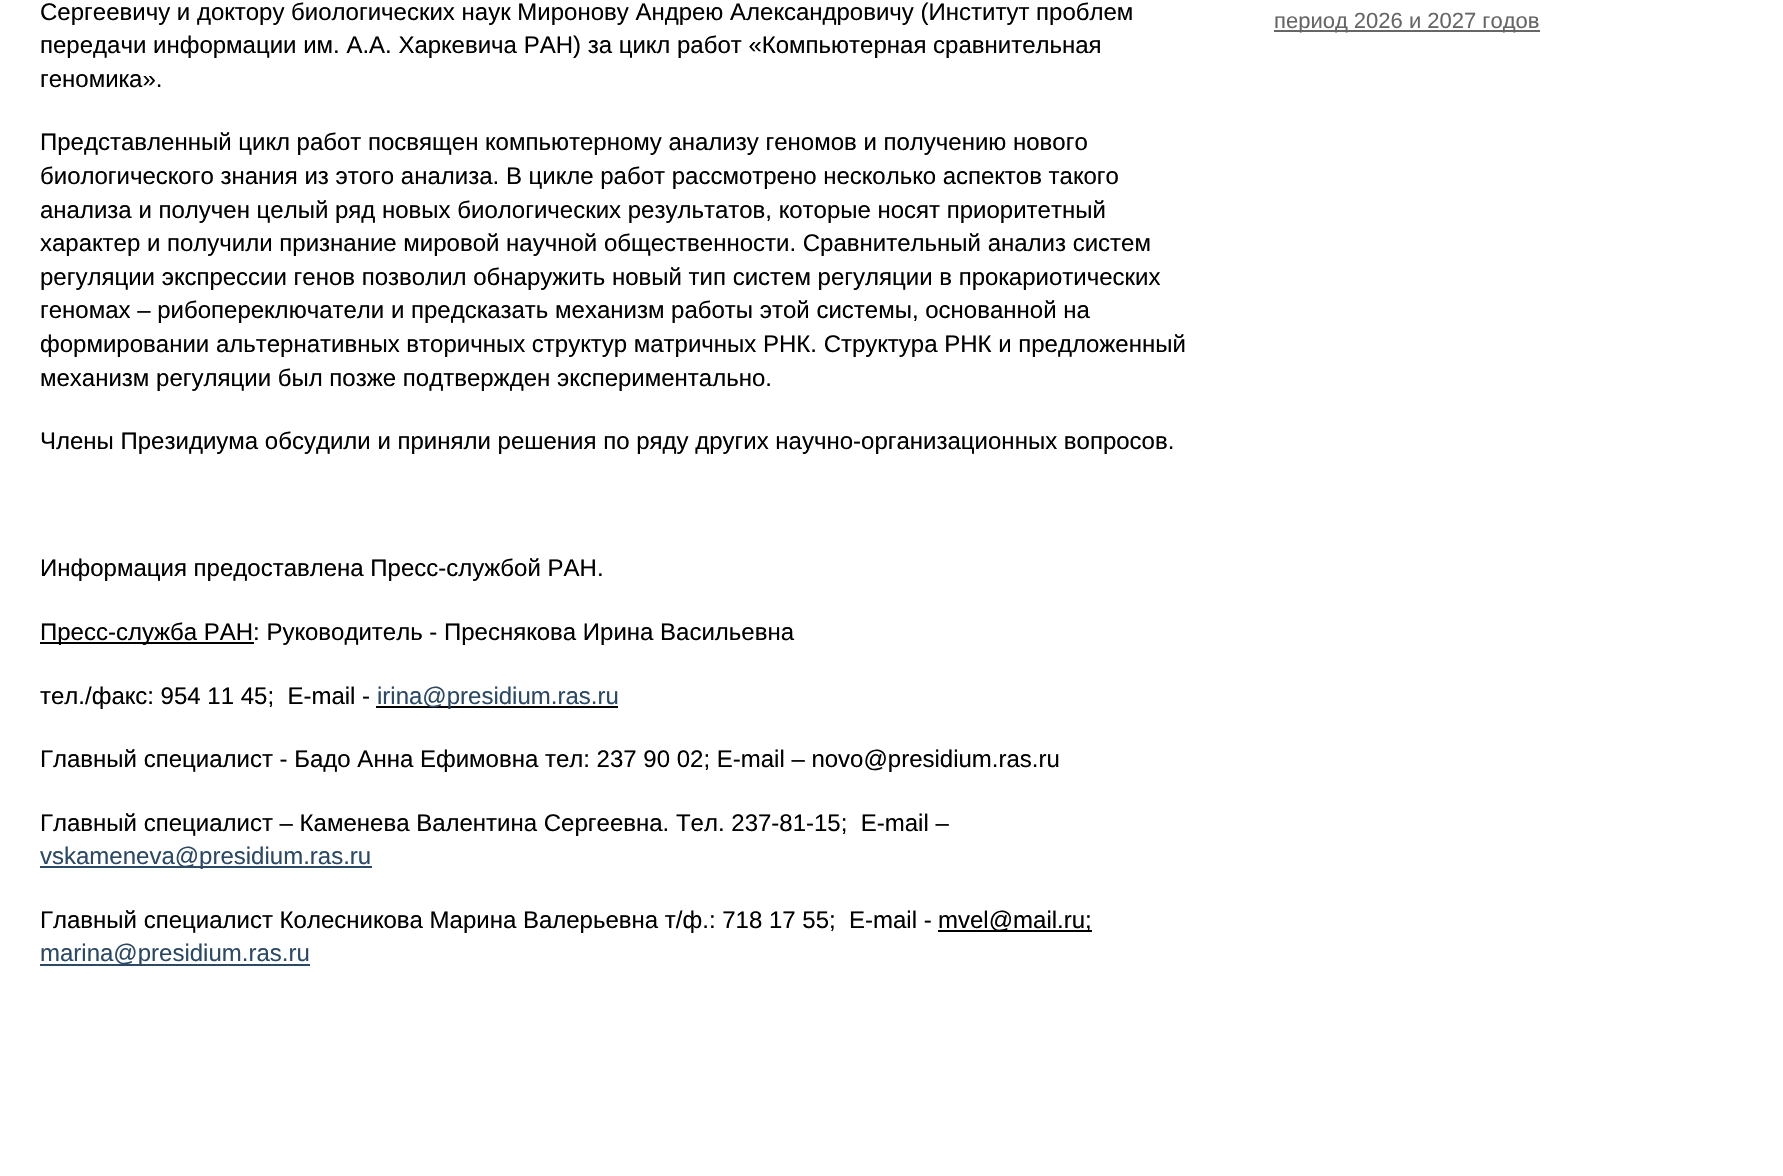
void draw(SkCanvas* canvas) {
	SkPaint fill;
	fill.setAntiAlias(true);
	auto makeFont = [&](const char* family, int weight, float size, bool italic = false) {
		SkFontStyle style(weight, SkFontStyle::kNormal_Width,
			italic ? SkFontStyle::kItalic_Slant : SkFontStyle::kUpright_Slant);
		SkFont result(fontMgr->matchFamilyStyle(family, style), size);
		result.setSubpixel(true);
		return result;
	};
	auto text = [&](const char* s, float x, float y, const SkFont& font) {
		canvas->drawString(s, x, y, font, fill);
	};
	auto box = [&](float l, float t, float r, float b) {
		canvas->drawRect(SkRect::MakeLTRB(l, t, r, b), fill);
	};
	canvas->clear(0xFFFFFFFF);
	fill.setColor(0xFF000000);
	box(40, 642, 254, 644);
	box(376, 706, 618, 708);
	fill.setColor(0xFF2B4965);
	box(40, 866, 372, 868);
	fill.setColor(0xFF000000);
	box(938, 930, 1092, 932);
	fill.setColor(0xFF2B4965);
	box(40, 964, 310, 966);
	fill.setColor(0xFF666666);
	box(1274, 30, 1540, 32);
	auto font1 = makeFont("Liberation Sans", 400, 24);
	fill.setColor(0xFF000000);
	text("Сергеевичу и доктору биологических наук Миронову Андрею Александровичу (Институт проблем", 40, 20, font1);
	text("передачи информации им. А.А. Харкевича РАН) за цикл работ «Компьютерная сравнительная", 40, 53, font1);
	text("геномика».", 40, 87, font1);
	text("Представленный цикл работ посвящен компьютерному анализу геномов и получению нового", 40, 150, font1);
	text("биологического знания из этого анализа. В цикле работ рассмотрено несколько аспектов такого", 40, 184, font1);
	text("анализа и получен целый ряд новых биологических результатов, которые носят приоритетный", 40, 218, font1);
	text("характер и получили признание мировой научной общественности. Сравнительный анализ систем", 40, 251, font1);
	text("регуляции экспрессии генов позволил обнаружить новый тип систем регуляции в прокариотических", 40, 285, font1);
	text("геномах – рибопереключатели и предсказать механизм работы этой системы, основанной на", 40, 318, font1);
	text("формировании альтернативных вторичных структур матричных РНК. Структура РНК и предложенный", 40, 352, font1);
	text("механизм регуляции был позже подтвержден экспериментально.", 40, 386, font1);
	text("Члены Президиума обсудили и приняли решения по ряду других научно-организационных вопросов.", 40, 449, font1);
	text("Информация предоставлена Пресс-службой РАН.", 40, 576, font1);
	text("Пресс-служба РАН: Руководитель - Преснякова Ирина Васильевна", 40, 640, font1);
	text("тел./факс: 954 11 45;  E-mail -", 40, 704, font1);
	fill.setColor(0xFF2B4965);
	text("irina@presidium.ras.ru", 377, 704, font1);
	fill.setColor(0xFF000000);
	text("Главный специалист - Бадо Анна Ефимовна тел: 237 90 02; E-mail – novo@presidium.ras.ru", 40, 767, font1);
	text("Главный специалист – Каменева Валентина Сергеевна. Тел. 237-81-15;  E-mail –", 40, 831, font1);
	fill.setColor(0xFF2B4965);
	text("vskameneva@presidium.ras.ru", 40, 864, font1);
	fill.setColor(0xFF000000);
	text("Главный специалист Колесникова Марина Валерьевна т/ф.: 718 17 55;", 40, 928, font1);
	text("E-mail -", 849, 928, font1);
	text("mvel@mail.ru;", 938, 928, font1);
	fill.setColor(0xFF2B4965);
	text("marina@presidium.ras.ru", 40, 961, font1);
	auto font2 = makeFont("Liberation Sans", 400, 22);
	fill.setColor(0xFF666666);
	text("период 2026 и 2027 годов", 1274, 28, font2);
}
